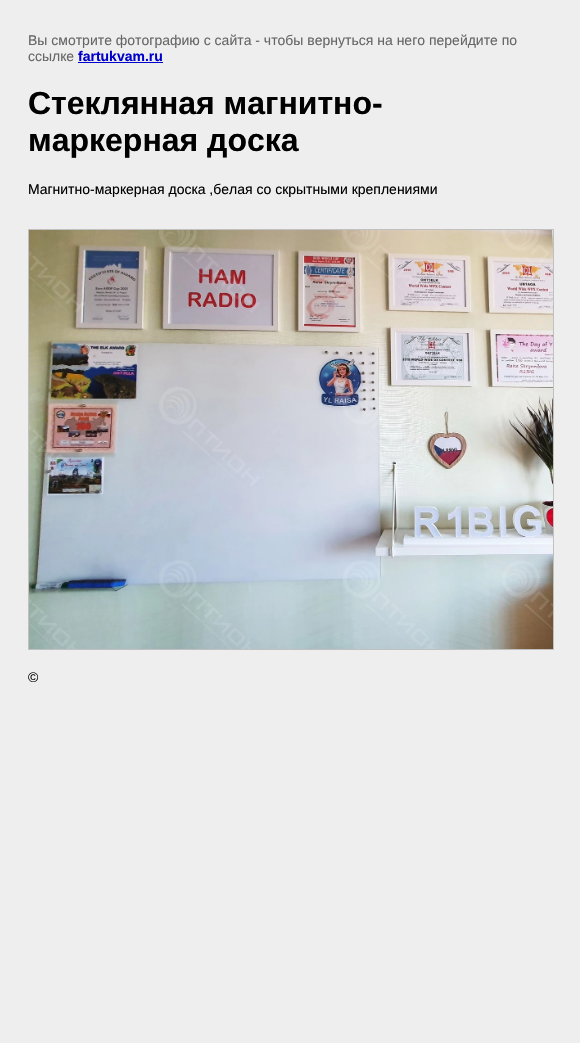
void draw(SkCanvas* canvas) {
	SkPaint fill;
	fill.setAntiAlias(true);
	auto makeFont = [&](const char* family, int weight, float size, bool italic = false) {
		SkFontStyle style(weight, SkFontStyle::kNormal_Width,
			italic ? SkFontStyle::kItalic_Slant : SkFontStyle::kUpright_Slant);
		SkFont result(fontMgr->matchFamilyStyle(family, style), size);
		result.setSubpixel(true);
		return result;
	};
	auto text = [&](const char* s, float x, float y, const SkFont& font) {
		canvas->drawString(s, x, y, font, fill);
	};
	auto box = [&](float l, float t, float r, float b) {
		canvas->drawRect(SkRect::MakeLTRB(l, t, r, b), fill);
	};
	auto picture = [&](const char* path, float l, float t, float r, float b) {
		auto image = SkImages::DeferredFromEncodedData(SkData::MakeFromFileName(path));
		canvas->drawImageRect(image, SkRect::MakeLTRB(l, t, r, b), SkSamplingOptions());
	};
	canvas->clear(0xFFEEEEEE);
	fill.setColor(0xFF0000CC);
	box(78, 62, 163, 63);
	fill.setStyle(SkPaint::kStroke_Style);
	fill.setStrokeWidth(1);
	fill.setColor(0xFFC0C0C0);
	canvas->drawRect(SkRect::MakeLTRB(28.5f, 229.5f, 553.5f, 649.5f), fill);
	picture("image0.png", 29, 230, 553, 649);
	auto font1 = makeFont("Liberation Sans", 400, 14);
	fill.setStyle(SkPaint::kFill_Style);
	fill.setColor(0xFF666666);
	text("Вы смотрите фотографию с сайта - чтобы вернуться на него перейдите по", 28, 45, font1);
	text("ссылке", 28, 61, font1);
	auto font2 = makeFont("Liberation Sans", 700, 14);
	fill.setColor(0xFF0000CC);
	text("fartukvam.ru", 78, 61, font2);
	auto font3 = makeFont("Liberation Sans", 700, 32);
	fill.setColor(0xFF000000);
	text("Стеклянная магнитно-", 28, 114, font3);
	text("маркерная доска", 28, 151, font3);
	text("Магнитно-маркерная доска ,белая со скрытными креплениями", 28, 194, font1);
	text("©", 28, 682, font1);
}
